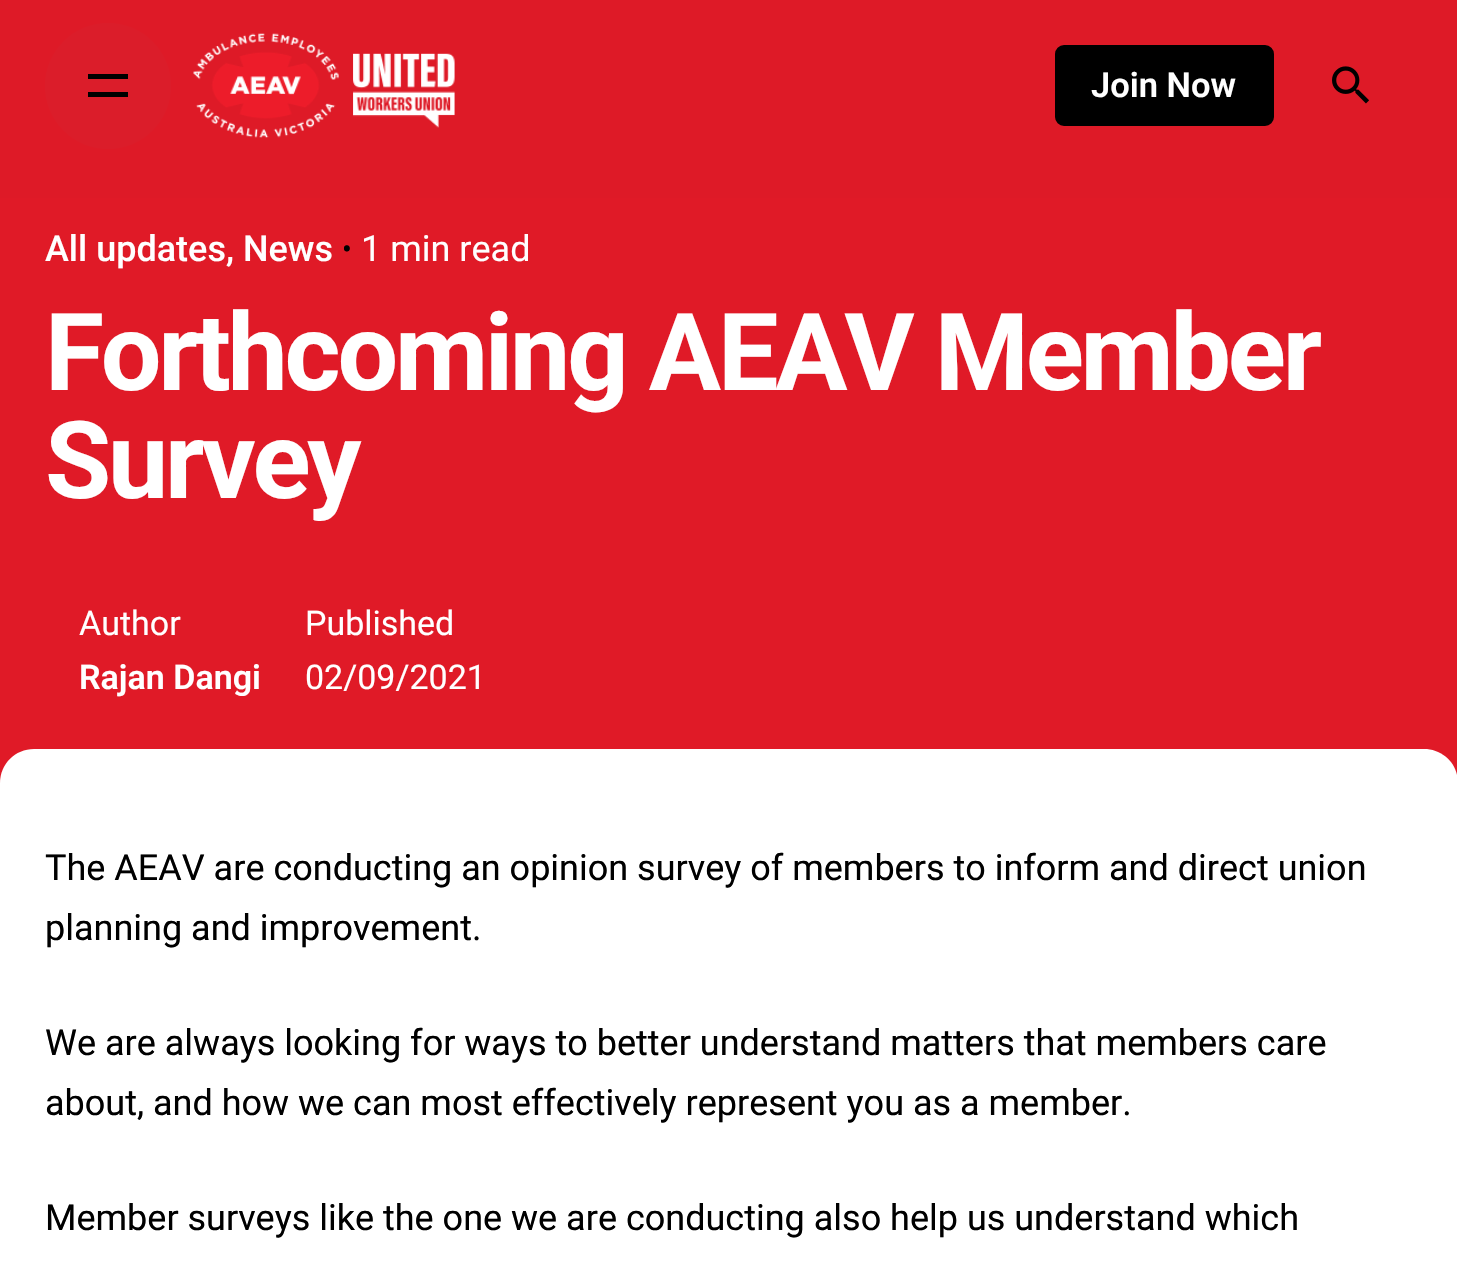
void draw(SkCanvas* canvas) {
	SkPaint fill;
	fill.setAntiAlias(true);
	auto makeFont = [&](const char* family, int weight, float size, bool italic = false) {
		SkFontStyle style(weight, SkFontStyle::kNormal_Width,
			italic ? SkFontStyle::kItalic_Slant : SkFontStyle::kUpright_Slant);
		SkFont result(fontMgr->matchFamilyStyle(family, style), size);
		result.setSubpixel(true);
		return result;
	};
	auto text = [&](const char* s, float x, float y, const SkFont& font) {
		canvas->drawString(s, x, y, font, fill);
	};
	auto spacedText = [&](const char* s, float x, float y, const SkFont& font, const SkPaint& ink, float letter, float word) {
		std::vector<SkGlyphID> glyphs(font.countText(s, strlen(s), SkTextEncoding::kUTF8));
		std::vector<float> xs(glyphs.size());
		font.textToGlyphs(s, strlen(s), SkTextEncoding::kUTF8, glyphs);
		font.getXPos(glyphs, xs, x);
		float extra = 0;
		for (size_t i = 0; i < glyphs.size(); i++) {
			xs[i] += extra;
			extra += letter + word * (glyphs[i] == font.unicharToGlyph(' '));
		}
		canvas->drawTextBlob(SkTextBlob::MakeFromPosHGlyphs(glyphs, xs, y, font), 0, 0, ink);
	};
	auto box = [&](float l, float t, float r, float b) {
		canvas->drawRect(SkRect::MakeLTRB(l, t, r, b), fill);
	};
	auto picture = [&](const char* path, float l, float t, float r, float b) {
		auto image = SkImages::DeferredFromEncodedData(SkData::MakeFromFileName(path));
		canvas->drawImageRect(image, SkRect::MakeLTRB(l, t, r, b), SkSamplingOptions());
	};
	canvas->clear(0xFFFFFFFF);
	fill.setColor(0xFFDE1A27);
	box(0, 0, 1457, 198);
	fill.setColor(0xFFDB1D2A);
	canvas->drawCircle(108, 86, 63, fill);
	fill.setColor(0xFF000000);
	box(88, 74, 128, 79);
	box(88, 92, 128, 97);
	picture("image0.png", 193, 33, 455, 138);
	canvas->drawRoundRect(SkRect::MakeLTRB(1056, 46, 1273, 125), 8, 8, fill);
	fill.setStyle(SkPaint::kStroke_Style);
	fill.setStrokeWidth(2);
	canvas->drawRoundRect(SkRect::MakeLTRB(1056, 46, 1273, 125), 8, 8, fill);
	picture("image1.png", 1332, 66, 1369, 104);
	fill.setStyle(SkPaint::kFill_Style);
	fill.setColor(0xFFE01A27);
	box(0, 198, 1457, 783);
	fill.setColor(0xFFFFFFFF);
	canvas->drawPath(SkPathBuilder().moveTo(34, 749).lineTo(1424, 749).cubicTo(1443, 749, 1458, 764, 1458, 783).lineTo(0, 783).cubicTo(0, 764, 15, 749, 34, 749).close().detach(), fill);
	auto font1 = makeFont("Roboto", 600, 34.5f);
	text("Join Now", 1091, 97, font1);
	auto font2 = makeFont("Roboto", 500, 36);
	text("All updates, News", 45, 261, font2);
	auto font3 = makeFont("Roboto", 400, 29);
	fill.setColor(0xFF000000);
	text("•", 342, 259, font3);
	auto font4 = makeFont("Roboto", 400, 36);
	fill.setColor(0xFFFFFFFF);
	text("1 min read", 361, 261, font4);
	auto font5 = makeFont("Roboto", 700, 107.6f);
	spacedText("Forthcoming AEAV Member", 45, 390, font5, fill, -3.25f, 0);
	spacedText("Survey", 45, 498, font5, fill, -3.25f, 0);
	auto font6 = makeFont("Roboto", 400, 34);
	text("Author", 79, 635, font6);
	auto font7 = makeFont("Roboto", 600, 34);
	text("Rajan Dangi", 79, 689, font7);
	text("Published", 305, 635, font6);
	text("02/09/2021", 305, 689, font6);
	fill.setColor(0xFF000000);
	text("The AEAV are conducting an opinion survey of members to inform and direct union", 45, 880, font4);
	text("planning and improvement.", 45, 940, font4);
	text("We are always looking for ways to better understand matters that members care", 45, 1055, font4);
	text("about, and how we can most effectively represent you as a member.", 45, 1115, font4);
	text("Member surveys like the one we are conducting also help us understand which", 45, 1230, font4);
}
